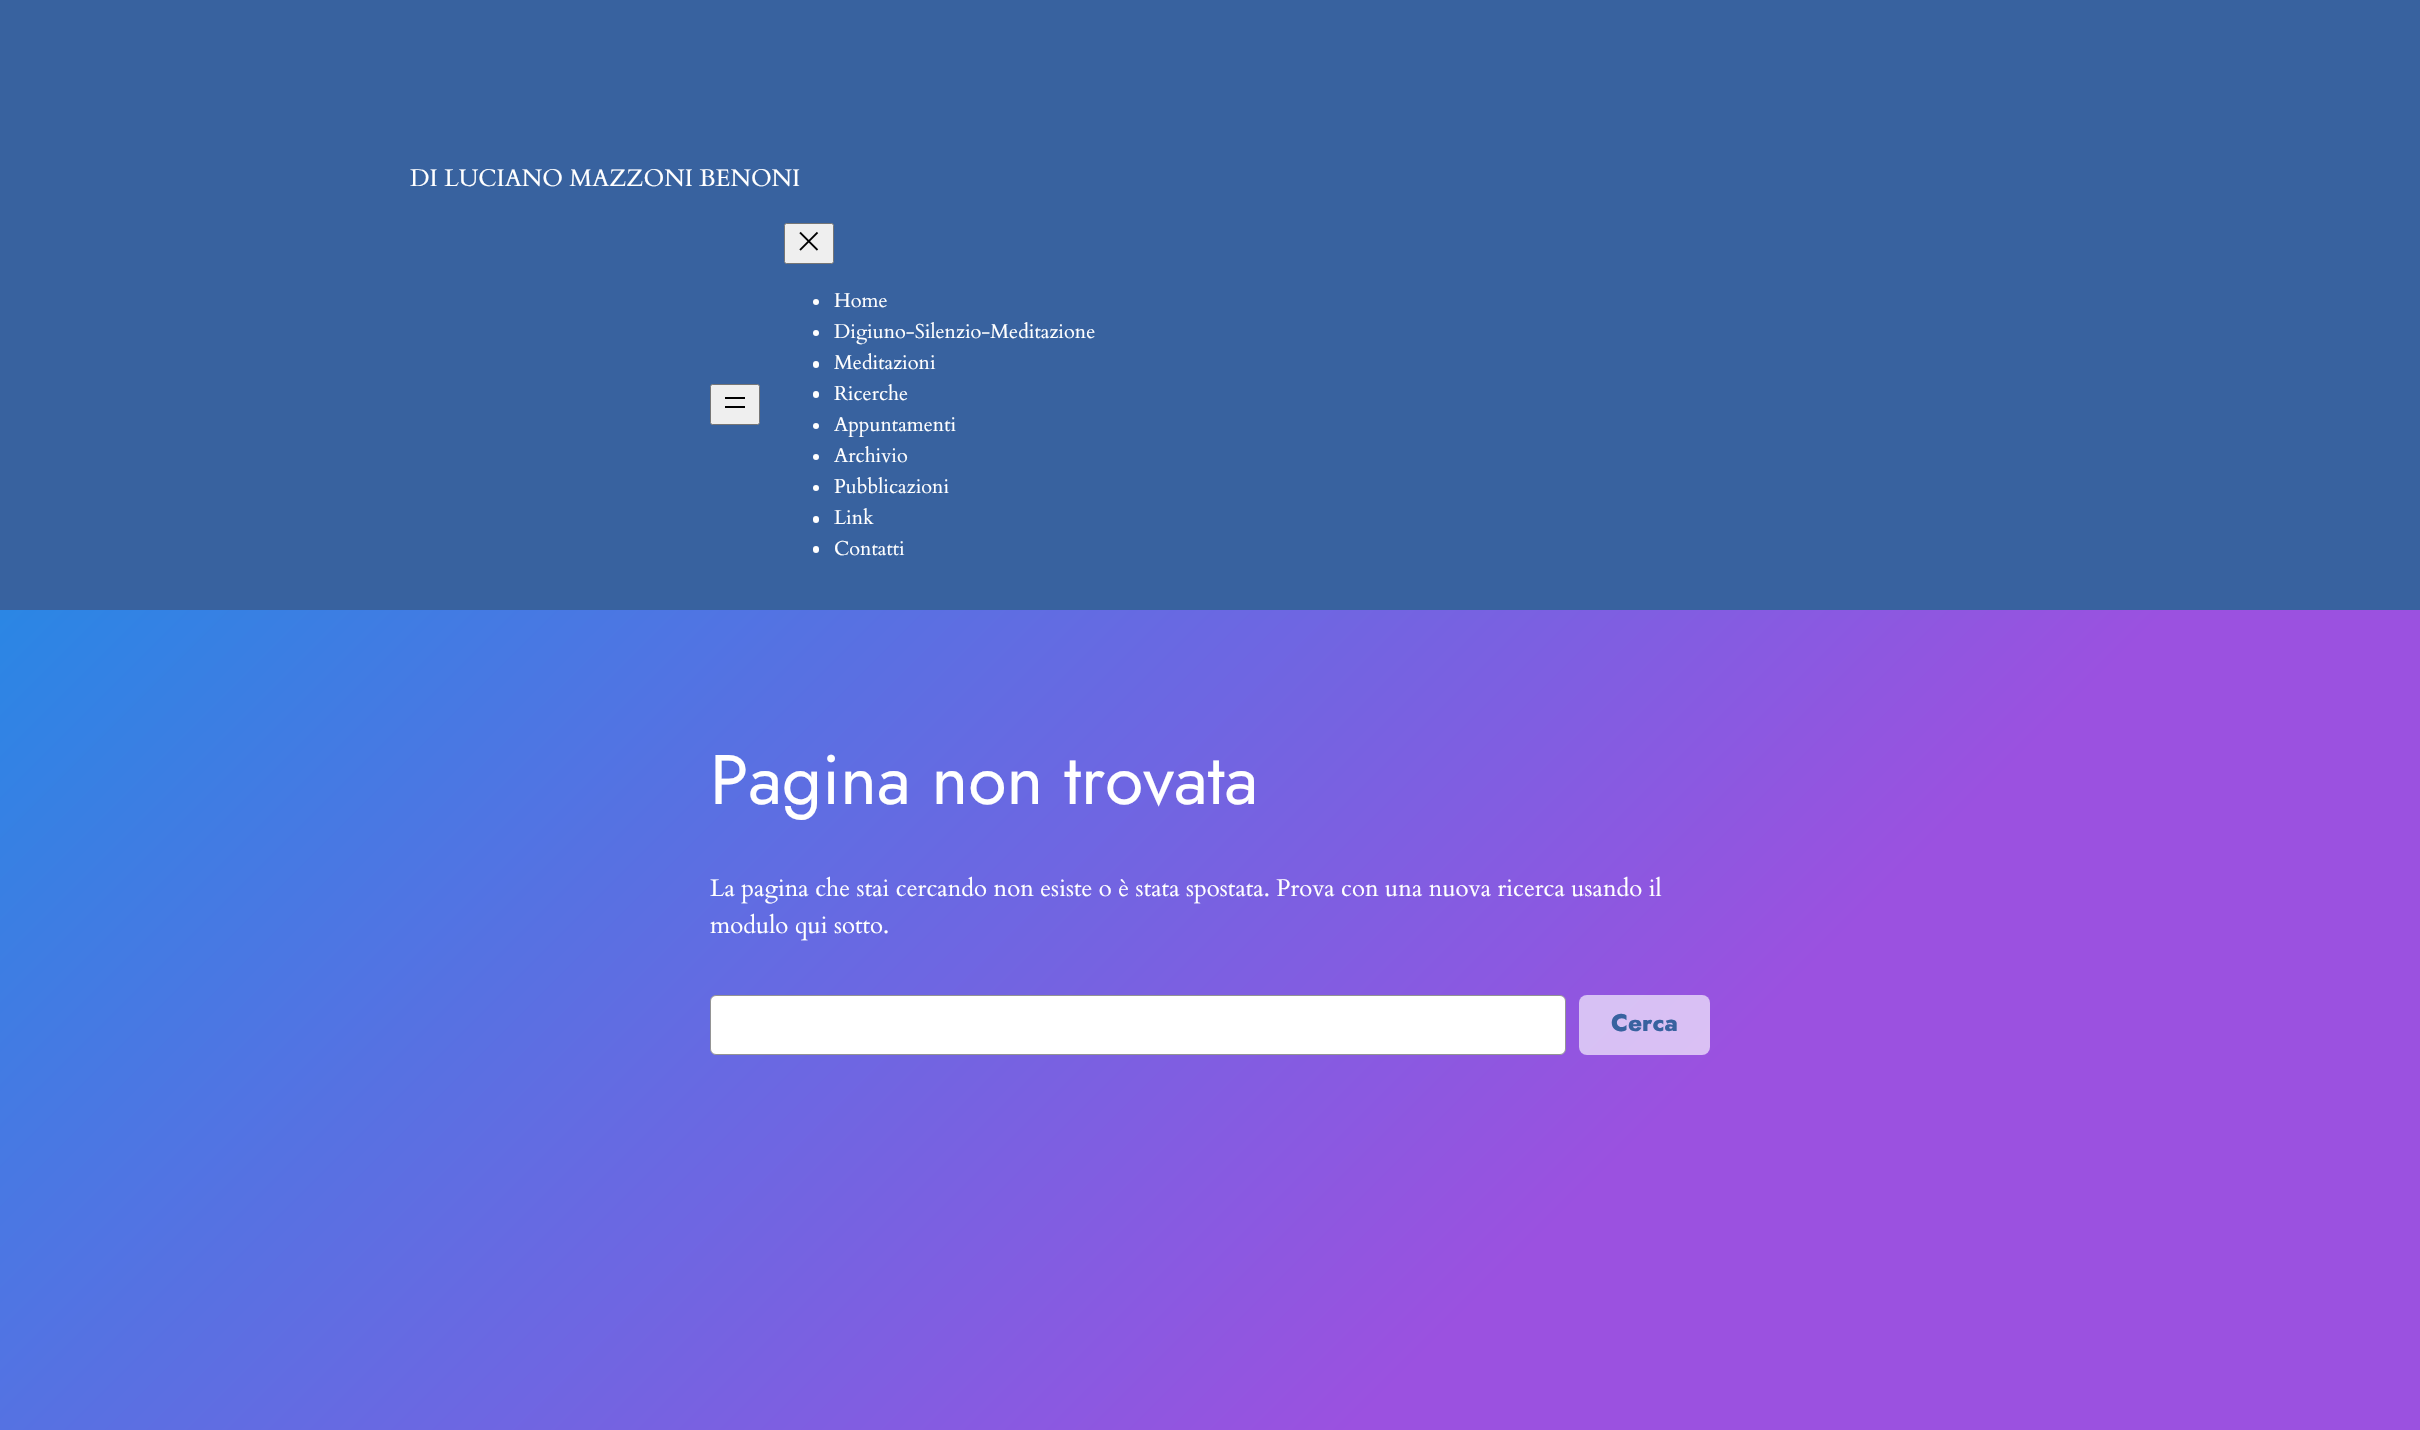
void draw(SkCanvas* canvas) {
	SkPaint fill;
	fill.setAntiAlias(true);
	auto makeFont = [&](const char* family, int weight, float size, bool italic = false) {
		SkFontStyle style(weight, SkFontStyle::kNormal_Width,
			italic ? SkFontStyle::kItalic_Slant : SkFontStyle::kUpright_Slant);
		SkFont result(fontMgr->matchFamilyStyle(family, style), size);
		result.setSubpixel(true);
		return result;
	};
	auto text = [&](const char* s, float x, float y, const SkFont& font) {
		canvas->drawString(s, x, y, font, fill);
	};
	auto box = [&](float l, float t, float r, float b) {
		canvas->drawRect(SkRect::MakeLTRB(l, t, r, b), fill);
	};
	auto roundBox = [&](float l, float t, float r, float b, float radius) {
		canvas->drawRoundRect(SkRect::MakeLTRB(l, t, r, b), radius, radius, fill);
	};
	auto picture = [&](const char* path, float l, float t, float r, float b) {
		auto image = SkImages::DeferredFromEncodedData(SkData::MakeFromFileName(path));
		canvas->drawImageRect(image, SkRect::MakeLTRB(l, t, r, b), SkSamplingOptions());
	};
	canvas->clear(0xFFFFFFFF);
	{
		const SkColor colors[] = {0xFF0B95E5, 0xFF9B51E0};
		const float stops[] = {0, 0.72f};
		const SkPoint ends[] = {{244, -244}, {2176, 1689}};
		fill.setShader(SkGradientShader::MakeLinear(ends, colors, stops, 2, SkTileMode::kClamp));
		fill.setAlpha(255);
	}
	box(0, 610, 2420, 1430);
	fill.setShader(nullptr);
	fill.setColor(0xFF38629F);
	box(0, 0, 2420, 610);
	fill.setColor(0xFFEFEFEF);
	canvas->drawRoundRect(SkRect::MakeLTRB(710.5f, 384.5f, 759.5f, 424.5f), 2, 2, fill);
	fill.setStyle(SkPaint::kStroke_Style);
	fill.setStrokeWidth(1);
	fill.setColor(0xFF767676);
	canvas->drawRoundRect(SkRect::MakeLTRB(710.5f, 384.5f, 759.5f, 424.5f), 2, 2, fill);
	fill.setStyle(SkPaint::kFill_Style);
	fill.setColor(0xFF000000);
	box(725, 397, 745, 399);
	box(725, 406, 745, 408);
	fill.setColor(0xFFEFEFEF);
	canvas->drawRoundRect(SkRect::MakeLTRB(784.5f, 223.5f, 833.5f, 263.5f), 2, 2, fill);
	fill.setStyle(SkPaint::kStroke_Style);
	fill.setColor(0xFF767676);
	canvas->drawRoundRect(SkRect::MakeLTRB(784.5f, 223.5f, 833.5f, 263.5f), 2, 2, fill);
	picture("image0.png", 799, 231, 819, 251);
	fill.setStyle(SkPaint::kFill_Style);
	fill.setColor(0xFFFFFFFF);
	canvas->drawCircle(816, 302, 3, fill);
	canvas->drawCircle(816, 333, 3, fill);
	roundBox(813, 361, 819, 368, 3);
	roundBox(813, 391, 819, 398, 3);
	canvas->drawCircle(816, 426, 3, fill);
	canvas->drawCircle(816, 457, 3, fill);
	canvas->drawCircle(816, 488, 3, fill);
	roundBox(813, 516, 819, 523, 3);
	roundBox(813, 546, 819, 553, 3);
	canvas->drawRoundRect(SkRect::MakeLTRB(710.5f, 995.5f, 1565.5f, 1054.5f), 5.5f, 5.5f, fill);
	fill.setStyle(SkPaint::kStroke_Style);
	fill.setColor(0xFF949494);
	canvas->drawRoundRect(SkRect::MakeLTRB(710.5f, 995.5f, 1565.5f, 1054.5f), 5.5f, 5.5f, fill);
	fill.setStyle(SkPaint::kFill_Style);
	fill.setColor(0xA1FFFFFF);
	roundBox(1579, 995, 1710, 1055, 8);
	auto font1 = makeFont("Cardo", 400, 24);
	fill.setColor(0xFFFFFFFF);
	text("DI LUCIANO MAZZONI BENONI", 410, 186, font1);
	auto font2 = makeFont("Cardo", 400, 20);
	text("Home", 834, 307, font2);
	text("Digiuno-Silenzio-Meditazione", 834, 338, font2);
	text("Meditazioni", 834, 369, font2);
	text("Ricerche", 834, 400, font2);
	text("Appuntamenti", 834, 431, font2);
	text("Archivio", 834, 462, font2);
	text("Pubblicazioni", 834, 493, font2);
	text("Link", 834, 524, font2);
	text("Contatti", 834, 555, font2);
	auto font3 = makeFont("Jost", 400, 70);
	text("Pagina non trovata", 710, 804, font3);
	text("La pagina che stai cercando non esiste o è stata spostata. Prova con una nuova ricerca usando il", 710, 896, font1);
	text("modulo qui sotto.", 710, 933, font1);
	auto font4 = makeFont("Jost", 800, 24);
	fill.setColor(0xFF38629F);
	text("Cerca", 1611, 1031, font4);
}
